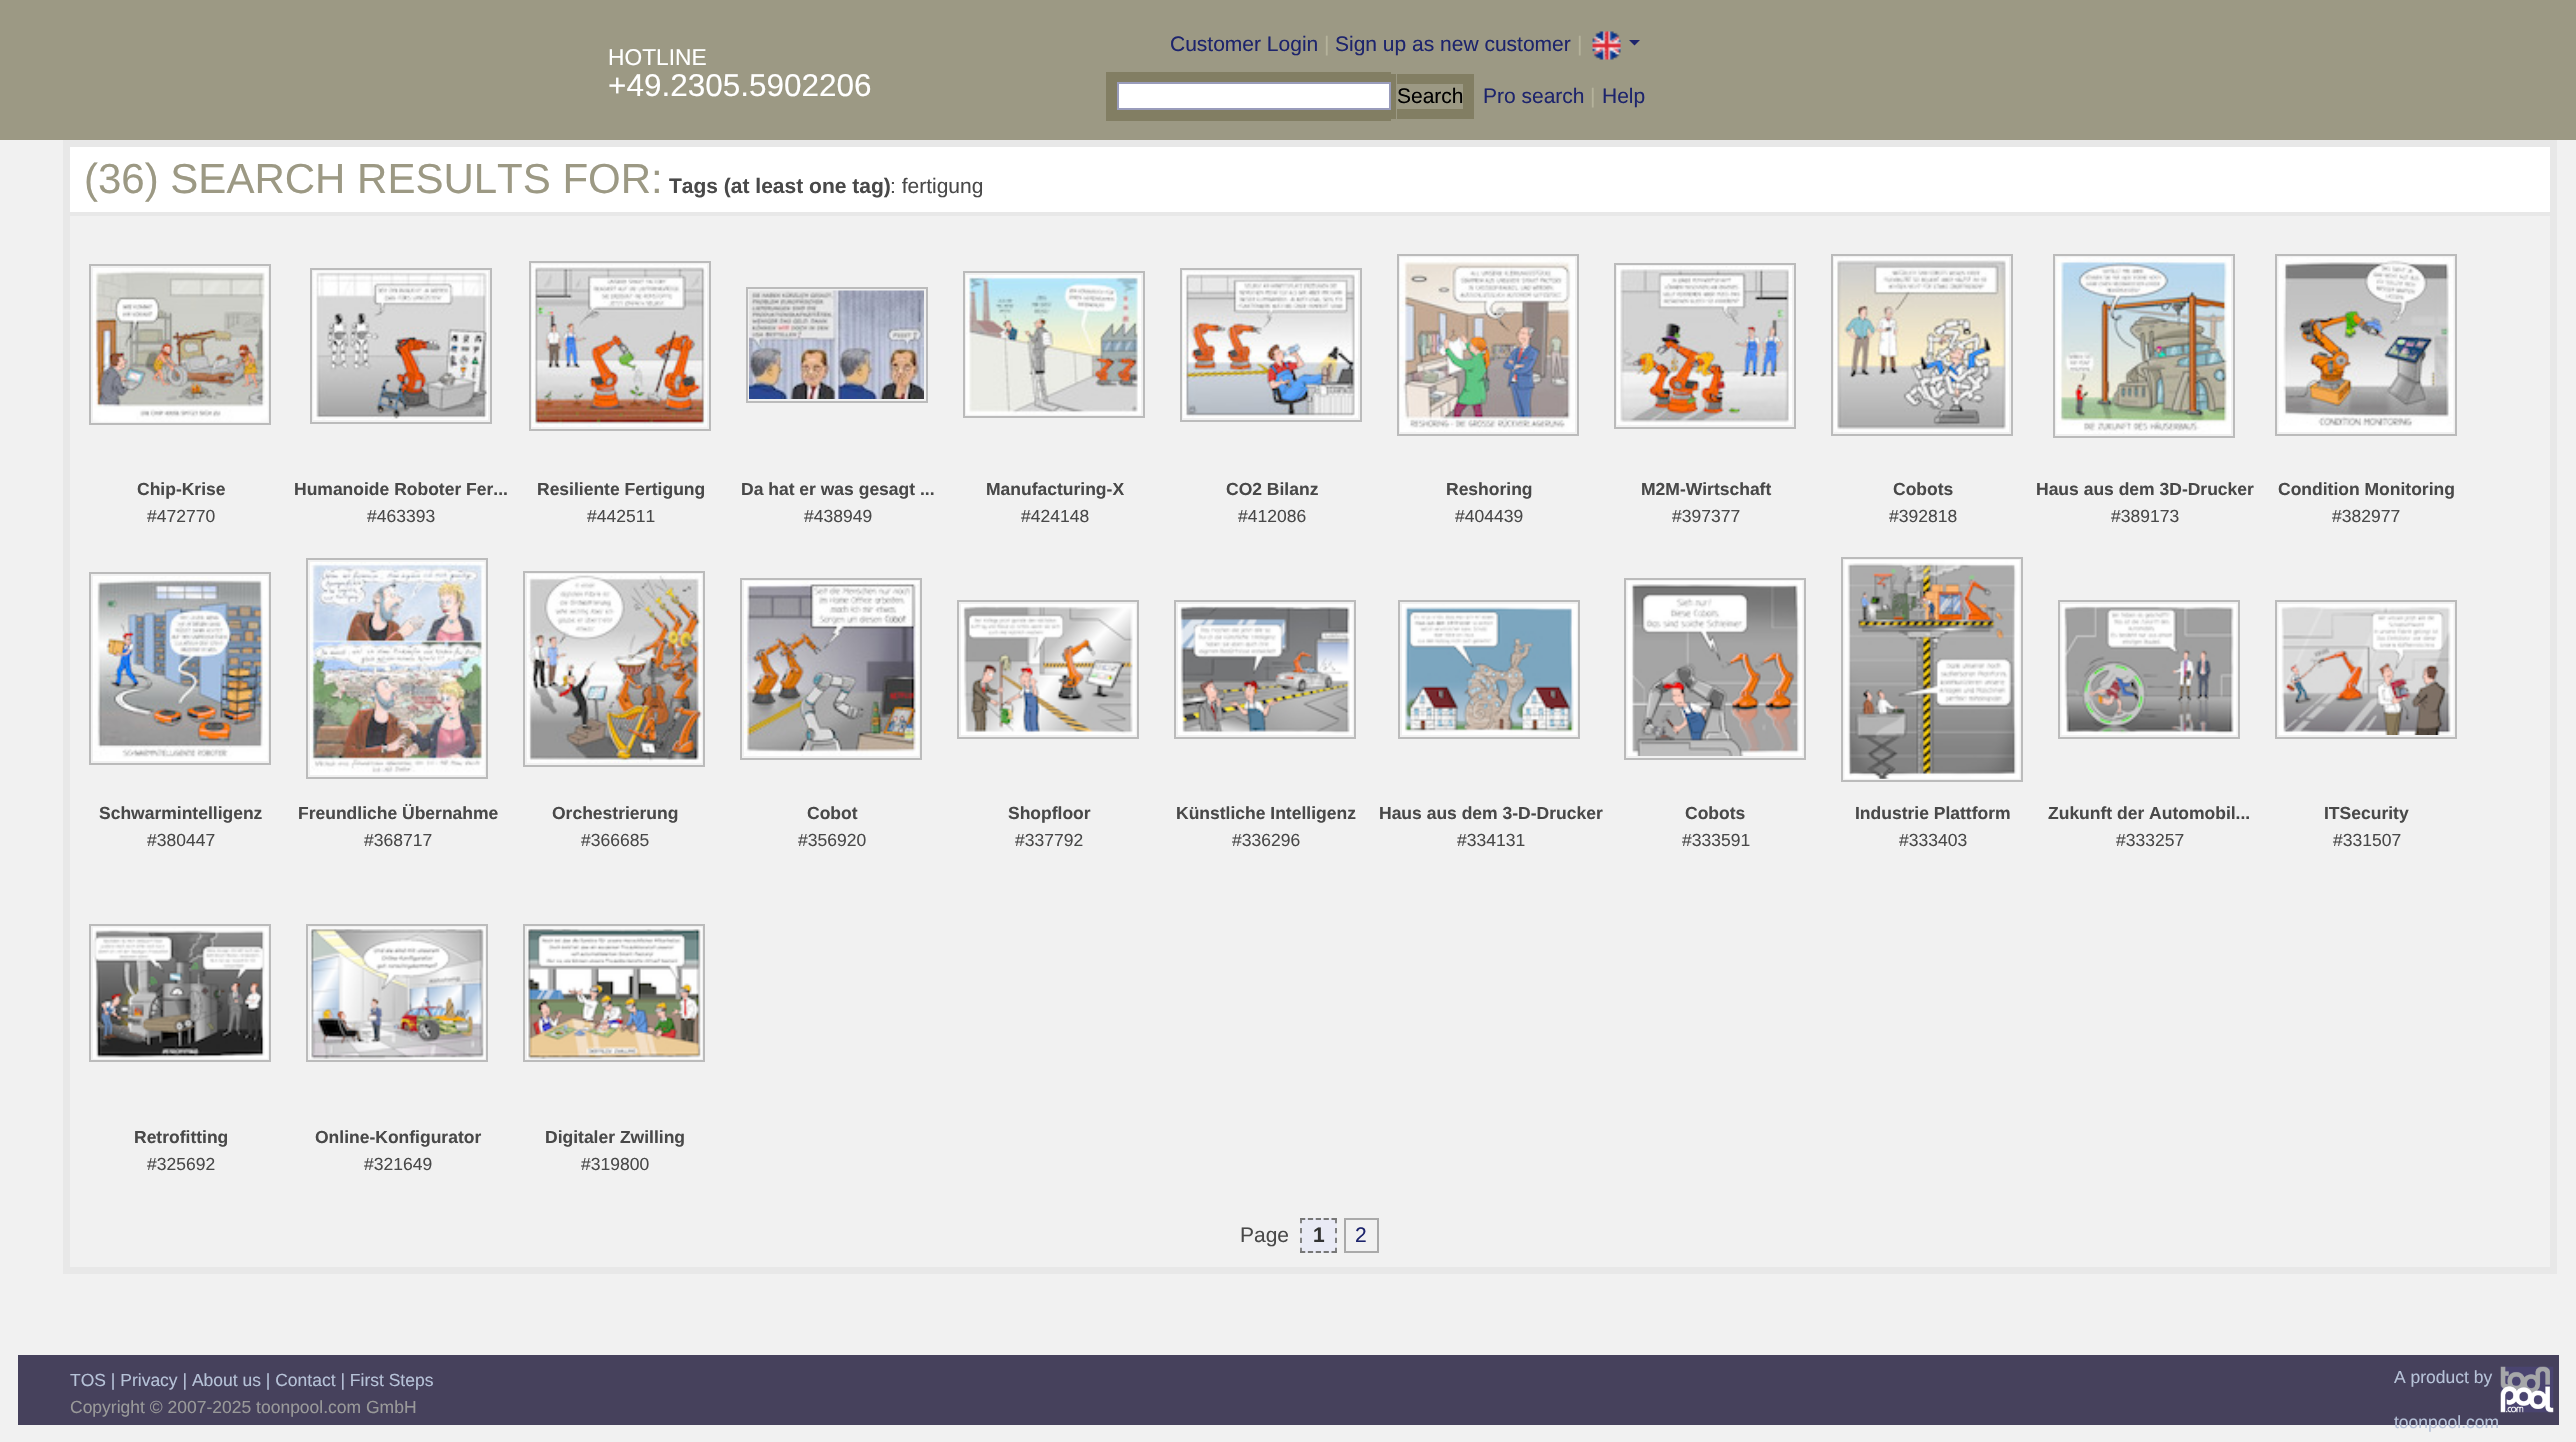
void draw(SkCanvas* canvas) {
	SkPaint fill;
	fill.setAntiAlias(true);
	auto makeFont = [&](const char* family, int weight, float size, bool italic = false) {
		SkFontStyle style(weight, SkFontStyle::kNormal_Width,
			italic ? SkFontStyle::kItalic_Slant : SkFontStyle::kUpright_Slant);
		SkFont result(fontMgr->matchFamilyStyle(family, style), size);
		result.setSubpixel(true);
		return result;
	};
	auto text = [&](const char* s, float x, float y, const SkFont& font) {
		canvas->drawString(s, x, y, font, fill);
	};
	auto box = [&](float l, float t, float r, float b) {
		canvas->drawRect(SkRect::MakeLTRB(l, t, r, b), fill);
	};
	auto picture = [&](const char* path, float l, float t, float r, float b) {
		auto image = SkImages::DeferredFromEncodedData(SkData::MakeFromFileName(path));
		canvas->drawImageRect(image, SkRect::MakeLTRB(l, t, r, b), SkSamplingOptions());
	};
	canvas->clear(0xFFF1F1F1);
	fill.setColor(0xFF9C9984);
	box(0, 0, 2576, 140);
	picture("image0.png", 1592, 31, 1621, 60);
	fill.setColor(0xFF1D246C);
	canvas->drawPath(SkPathBuilder().moveTo(1629, 40).lineTo(1640, 40).lineTo(1634.5f, 45.5f).close().detach(), fill);
	fill.setColor(0xFF827E63);
	box(1106, 72, 1391, 121);
	box(1391, 74, 1396, 119);
	box(1397, 74, 1474, 119);
	fill.setColor(0xFFFFFFFF);
	canvas->drawRect(SkRect::MakeLTRB(1118, 83, 1390, 109), fill);
	fill.setStyle(SkPaint::kStroke_Style);
	fill.setStrokeWidth(2);
	fill.setColor(0xFF999CBB);
	canvas->drawRect(SkRect::MakeLTRB(1118, 83, 1390, 109), fill);
	fill.setStyle(SkPaint::kFill_Style);
	fill.setColor(0xFF9C9984);
	box(1397, 84, 1463, 109);
	fill.setStyle(SkPaint::kStroke_Style);
	fill.setStrokeWidth(7);
	fill.setColor(0xFFE8E8E8);
	canvas->drawRect(SkRect::MakeLTRB(66.5f, 143.5f, 2553.5f, 1270.5f), fill);
	fill.setStyle(SkPaint::kFill_Style);
	fill.setColor(0xFFFFFFFF);
	box(70, 147, 2550, 212);
	fill.setColor(0xFFE8E8E8);
	box(70, 212, 2550, 216);
	fill.setStyle(SkPaint::kStroke_Style);
	fill.setStrokeWidth(2);
	fill.setColor(0xFFBBBBBB);
	canvas->drawRect(SkRect::MakeLTRB(90, 265, 270, 424), fill);
	picture("image1.png", 93, 268, 268, 422);
	canvas->drawRect(SkRect::MakeLTRB(311, 269, 491, 423), fill);
	picture("image2.png", 313, 271, 488, 420);
	canvas->drawRect(SkRect::MakeLTRB(530, 262, 710, 430), fill);
	picture("image3.png", 532, 264, 707, 427);
	canvas->drawRect(SkRect::MakeLTRB(747, 288, 927, 402), fill);
	picture("image4.png", 749, 290, 924, 399);
	canvas->drawRect(SkRect::MakeLTRB(964, 272, 1144, 417), fill);
	picture("image5.png", 966, 275, 1141, 415);
	canvas->drawRect(SkRect::MakeLTRB(1181, 269, 1361, 421), fill);
	picture("image6.png", 1183, 271, 1358, 418);
	canvas->drawRect(SkRect::MakeLTRB(1398, 255, 1578, 435), fill);
	picture("image7.png", 1400, 257, 1575, 432);
	canvas->drawRect(SkRect::MakeLTRB(1615, 264, 1795, 428), fill);
	picture("image8.png", 1617, 266, 1792, 425);
	canvas->drawRect(SkRect::MakeLTRB(1832, 255, 2012, 435), fill);
	picture("image9.png", 1834, 257, 2009, 432);
	canvas->drawRect(SkRect::MakeLTRB(2054, 255, 2234, 437), fill);
	picture("image10.png", 2056, 257, 2231, 434);
	canvas->drawRect(SkRect::MakeLTRB(2276, 255, 2456, 435), fill);
	picture("image11.png", 2278, 257, 2454, 432);
	canvas->drawRect(SkRect::MakeLTRB(90, 573, 270, 764), fill);
	picture("image12.png", 93, 576, 268, 761);
	canvas->drawRect(SkRect::MakeLTRB(307, 559, 487, 778), fill);
	picture("image13.png", 310, 562, 485, 775);
	canvas->drawRect(SkRect::MakeLTRB(524, 572, 704, 766), fill);
	picture("image14.png", 527, 574, 702, 763);
	canvas->drawRect(SkRect::MakeLTRB(741, 579, 921, 759), fill);
	picture("image15.png", 744, 581, 919, 756);
	canvas->drawRect(SkRect::MakeLTRB(958, 601, 1138, 738), fill);
	picture("image16.png", 961, 604, 1136, 735);
	canvas->drawRect(SkRect::MakeLTRB(1175, 601, 1355, 738), fill);
	picture("image17.png", 1178, 604, 1353, 735);
	canvas->drawRect(SkRect::MakeLTRB(1399, 601, 1579, 738), fill);
	picture("image18.png", 1402, 604, 1577, 735);
	canvas->drawRect(SkRect::MakeLTRB(1625, 579, 1805, 759), fill);
	picture("image19.png", 1627, 581, 1803, 756);
	canvas->drawRect(SkRect::MakeLTRB(1842, 558, 2022, 781), fill);
	picture("image20.png", 1844, 560, 2020, 779);
	canvas->drawRect(SkRect::MakeLTRB(2059, 601, 2239, 738), fill);
	picture("image21.png", 2061, 604, 2237, 735);
	canvas->drawRect(SkRect::MakeLTRB(2276, 601, 2456, 738), fill);
	picture("image22.png", 2278, 604, 2454, 735);
	canvas->drawRect(SkRect::MakeLTRB(90, 925, 270, 1061), fill);
	picture("image23.png", 93, 927, 268, 1059);
	canvas->drawRect(SkRect::MakeLTRB(307, 925, 487, 1061), fill);
	picture("image24.png", 310, 927, 485, 1059);
	canvas->drawRect(SkRect::MakeLTRB(524, 925, 704, 1061), fill);
	picture("image25.png", 527, 927, 702, 1059);
	fill.setStyle(SkPaint::kFill_Style);
	fill.setColor(0xFFE9EAF5);
	box(1300, 1218, 1337, 1253);
	fill.setStyle(SkPaint::kStroke_Style);
	fill.setStrokeWidth(1.8f);
	fill.setColor(0xFF777777);
	fill.setPathEffect(SkDashPathEffect::Make({{5.25f, 2.62f}}, 0));
	canvas->drawPath(SkPathBuilder().moveTo(1300, 1219).lineTo(1337, 1219).detach(), fill);
	fill.setPathEffect(nullptr);
	fill.setPathEffect(SkDashPathEffect::Make({{5.25f, 4.67f}}, 0));
	canvas->drawPath(SkPathBuilder().moveTo(1336, 1218).lineTo(1336, 1253).detach(), fill);
	fill.setPathEffect(nullptr);
	fill.setPathEffect(SkDashPathEffect::Make({{5.25f, 2.62f}}, 0));
	canvas->drawPath(SkPathBuilder().moveTo(1300, 1252).lineTo(1337, 1252).detach(), fill);
	fill.setPathEffect(nullptr);
	fill.setPathEffect(SkDashPathEffect::Make({{5.25f, 4.67f}}, 0));
	canvas->drawPath(SkPathBuilder().moveTo(1301, 1218).lineTo(1301, 1253).detach(), fill);
	fill.setPathEffect(nullptr);
	fill.setStrokeWidth(2);
	fill.setColor(0xFFAAAAAA);
	canvas->drawRect(SkRect::MakeLTRB(1345, 1219, 1378, 1252), fill);
	fill.setStyle(SkPaint::kFill_Style);
	fill.setColor(0xFF46415C);
	box(18, 1355, 2559, 1425);
	picture("image26.png", 2500, 1366, 2554, 1413);
	auto font1 = makeFont("Liberation Sans", 400, 21);
	fill.setColor(0xFF1D246C);
	text("Customer Login", 1170, 51, font1);
	fill.setColor(0xFFB5B29B);
	text("|", 1324, 51, font1);
	fill.setColor(0xFF1D246C);
	text("Sign up as new customer", 1335, 51, font1);
	fill.setColor(0xFFB5B29B);
	text("|", 1577, 51, font1);
	auto font2 = makeFont("Liberation Sans", 400, 22.75f);
	fill.setColor(0xFFFFFFFF);
	text("HOTLINE", 608, 65, font2);
	auto font3 = makeFont("Liberation Sans", 400, 31.5f);
	text("+49.2305.5902206", 608, 96, font3);
	fill.setColor(0xFF000000);
	text("Search", 1397, 103, font1);
	fill.setColor(0xFF1D246C);
	text("Pro search", 1483, 103, font1);
	fill.setColor(0xFFB5B29B);
	text("|", 1590, 103, font1);
	fill.setColor(0xFF1D246C);
	text("Help", 1602, 103, font1);
	auto font4 = makeFont("Liberation Sans", 400, 42);
	fill.setColor(0xFF9C9984);
	text("(36) SEARCH RESULTS FOR:", 84, 193, font4);
	auto font5 = makeFont("Liberation Sans", 700, 21);
	fill.setColor(0xFF494949);
	text("Tags (at least one tag)", 669, 193, font5);
	text(": fertigung", 890, 193, font1);
	auto font6 = makeFont("Liberation Sans", 700, 17.5f);
	text("Chip-Krise", 137, 495, font6);
	auto font7 = makeFont("Liberation Sans", 400, 17.5f);
	text("#472770", 147, 522, font7);
	text("Humanoide Roboter Fer...", 294, 495, font6);
	text("#463393", 367, 522, font7);
	text("Resiliente Fertigung", 537, 495, font6);
	text("#442511", 587, 522, font7);
	text("Da hat er was gesagt ...", 741, 495, font6);
	text("#438949", 804, 522, font7);
	text("Manufacturing-X", 986, 495, font6);
	text("#424148", 1021, 522, font7);
	text("CO2 Bilanz", 1226, 495, font6);
	text("#412086", 1238, 522, font7);
	text("Reshoring", 1446, 495, font6);
	text("#404439", 1455, 522, font7);
	text("M2M-Wirtschaft", 1641, 495, font6);
	text("#397377", 1672, 522, font7);
	text("Cobots", 1893, 495, font6);
	text("#392818", 1889, 522, font7);
	text("Haus aus dem 3D-Drucker", 2036, 495, font6);
	text("#389173", 2111, 522, font7);
	text("Condition Monitoring", 2278, 495, font6);
	text("#382977", 2332, 522, font7);
	text("Schwarmintelligenz", 99, 819, font6);
	text("#380447", 147, 846, font7);
	text("Freundliche Übernahme", 298, 819, font6);
	text("#368717", 364, 846, font7);
	text("Orchestrierung", 552, 819, font6);
	text("#366685", 581, 846, font7);
	text("Cobot", 807, 819, font6);
	text("#356920", 798, 846, font7);
	text("Shopfloor", 1008, 819, font6);
	text("#337792", 1015, 846, font7);
	text("Künstliche Intelligenz", 1176, 819, font6);
	text("#336296", 1232, 846, font7);
	text("Haus aus dem 3-D-Drucker", 1379, 819, font6);
	text("#334131", 1457, 846, font7);
	text("Cobots", 1685, 819, font6);
	text("#333591", 1682, 846, font7);
	text("Industrie Plattform", 1855, 819, font6);
	text("#333403", 1899, 846, font7);
	text("Zukunft der Automobil...", 2048, 819, font6);
	text("#333257", 2116, 846, font7);
	text("ITSecurity", 2324, 819, font6);
	text("#331507", 2333, 846, font7);
	text("Retrofitting", 134, 1143, font6);
	text("#325692", 147, 1170, font7);
	text("Online-Konfigurator", 315, 1143, font6);
	text("#321649", 364, 1170, font7);
	text("Digitaler Zwilling", 545, 1143, font6);
	text("#319800", 581, 1170, font7);
	text("Page", 1240, 1242, font1);
	fill.setColor(0xFF333333);
	text("1", 1313, 1242, font5);
	fill.setColor(0xFF1D246C);
	text("2", 1355, 1242, font1);
	fill.setColor(0xFFB6C2D8);
	text("TOS | Privacy | About us | Contact | First Steps", 70, 1386, font7);
	fill.setColor(0xFF999999);
	text("Copyright © 2007-2025 toonpool.com GmbH", 70, 1413, font7);
	fill.setColor(0xFFB6C2D8);
	text("A product by", 2394, 1383, font7);
	text("toonpool.com", 2394, 1428, font7);
}
